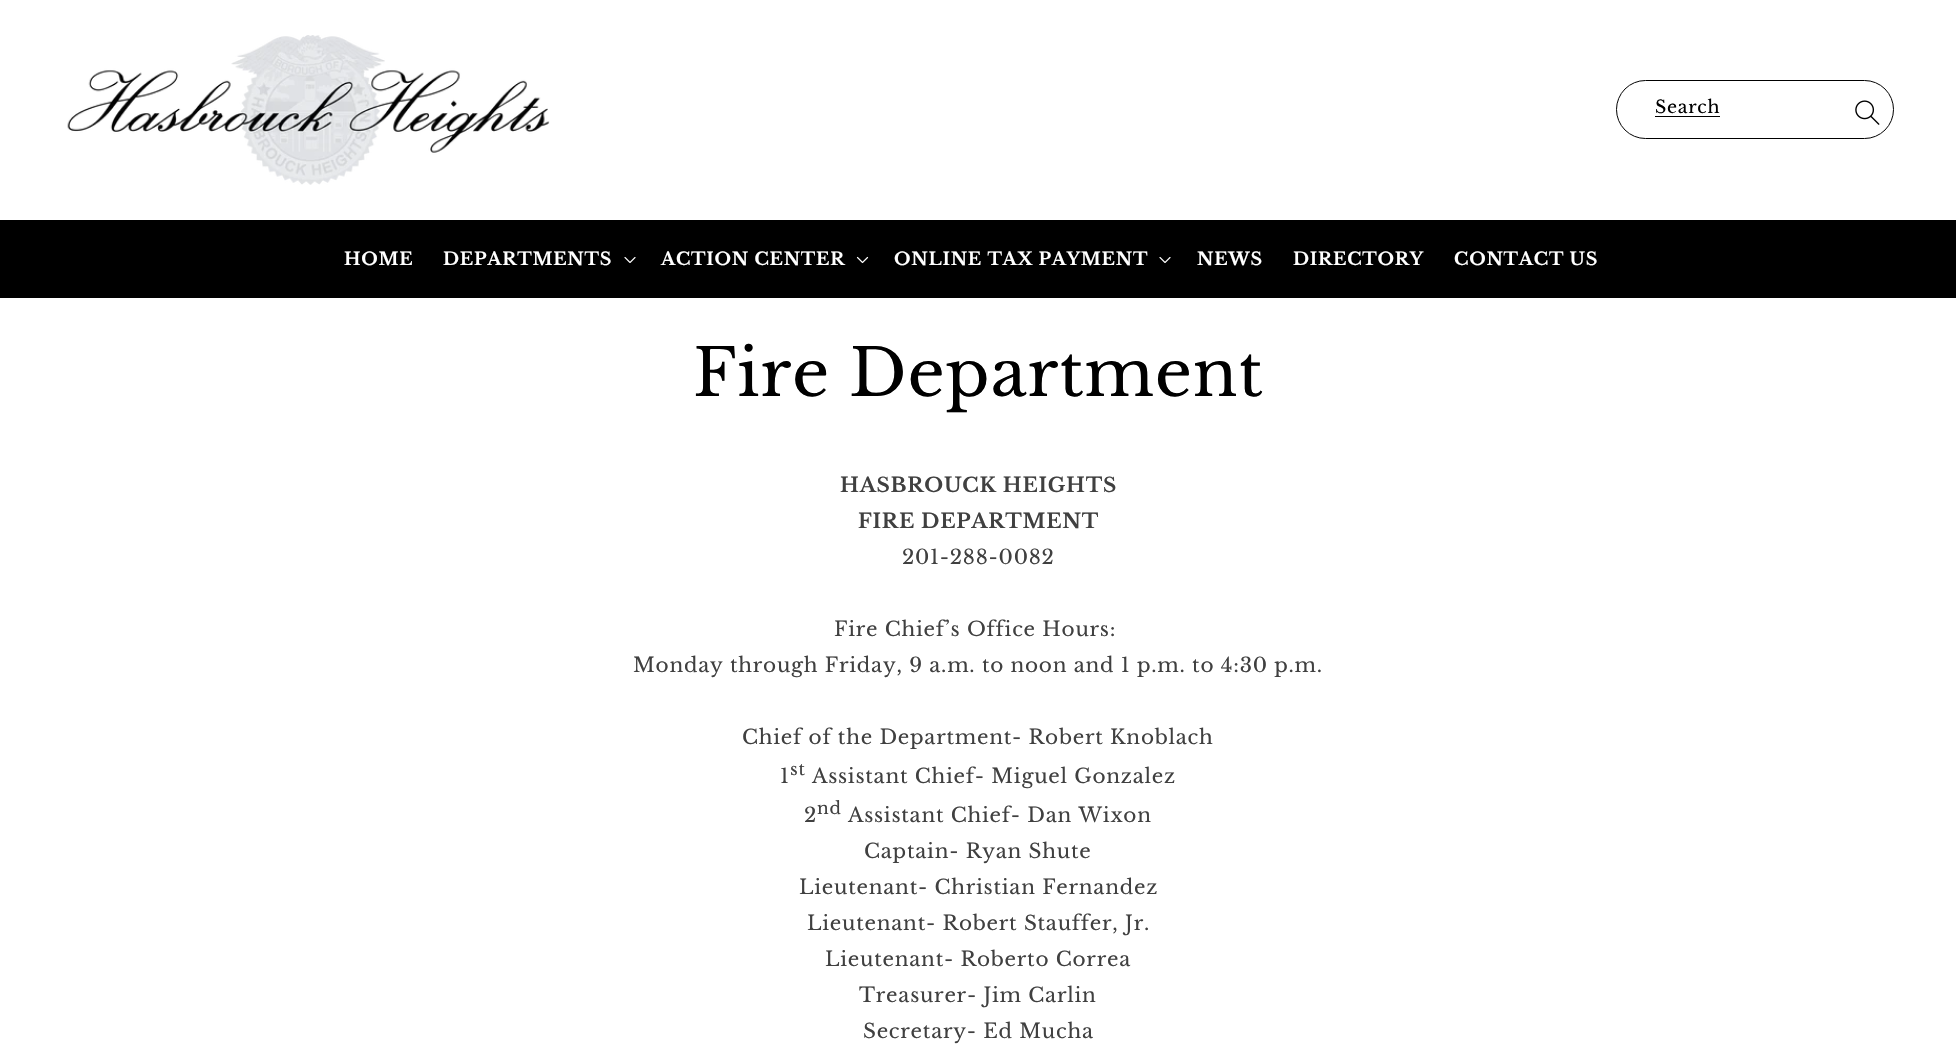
void draw(SkCanvas* canvas) {
	SkPaint fill;
	fill.setAntiAlias(true);
	auto makeFont = [&](const char* family, int weight, float size, bool italic = false) {
		SkFontStyle style(weight, SkFontStyle::kNormal_Width,
			italic ? SkFontStyle::kItalic_Slant : SkFontStyle::kUpright_Slant);
		SkFont result(fontMgr->matchFamilyStyle(family, style), size);
		result.setSubpixel(true);
		return result;
	};
	auto spacedText = [&](const char* s, float x, float y, const SkFont& font, const SkPaint& ink, float letter, float word) {
		std::vector<SkGlyphID> glyphs(font.countText(s, strlen(s), SkTextEncoding::kUTF8));
		std::vector<float> xs(glyphs.size());
		font.textToGlyphs(s, strlen(s), SkTextEncoding::kUTF8, glyphs);
		font.getXPos(glyphs, xs, x);
		float extra = 0;
		for (size_t i = 0; i < glyphs.size(); i++) {
			xs[i] += extra;
			extra += letter + word * (glyphs[i] == font.unicharToGlyph(' '));
		}
		canvas->drawTextBlob(SkTextBlob::MakeFromPosHGlyphs(glyphs, xs, y, font), 0, 0, ink);
	};
	auto box = [&](float l, float t, float r, float b) {
		canvas->drawRect(SkRect::MakeLTRB(l, t, r, b), fill);
	};
	auto picture = [&](const char* path, float l, float t, float r, float b) {
		auto image = SkImages::DeferredFromEncodedData(SkData::MakeFromFileName(path));
		canvas->drawImageRect(image, SkRect::MakeLTRB(l, t, r, b), SkSamplingOptions());
	};
	canvas->clear(0xFFFFFFFF);
	picture("image0.png", 67, 35, 550, 185);
	fill.setStyle(SkPaint::kStroke_Style);
	fill.setStrokeWidth(1);
	fill.setColor(0xFF000000);
	canvas->drawRoundRect(SkRect::MakeLTRB(1616.5f, 80.5f, 1893.5f, 138.5f), 29, 29, fill);
	fill.setStyle(SkPaint::kFill_Style);
	box(1655, 116, 1720, 117);
	picture("image1.png", 1855, 100, 1880, 125);
	box(0, 220, 1956, 298);
	picture("image2.png", 624, 257, 636, 263);
	picture("image3.png", 856, 256, 869, 264);
	picture("image2.png", 1159, 257, 1171, 263);
	auto font1 = makeFont("Libre Baskerville", 400, 17.5f);
	spacedText("Search", 1655, 113, font1, fill, 0.75f, 0);
	auto font2 = makeFont("Libre Baskerville", 700, 17.5f);
	fill.setColor(0xFFFFFFFF);
	spacedText("HOME", 344, 265, font2, fill, 0.75f, 0);
	spacedText("DEPARTMENTS", 443, 265, font2, fill, 0.75f, 0);
	spacedText("ACTION CENTER", 661, 265, font2, fill, 0.75f, 0);
	spacedText("ONLINE TAX PAYMENT", 894, 265, font2, fill, 0.75f, 0);
	spacedText("NEWS", 1197, 265, font2, fill, 0.75f, 0);
	spacedText("DIRECTORY", 1293, 265, font2, fill, 0.75f, 0);
	spacedText("CONTACT US", 1454, 265, font2, fill, 0.75f, 0);
	auto font3 = makeFont("Libre Baskerville", 400, 65);
	fill.setColor(0xFF000000);
	spacedText("Fire Department", 693, 396, font3, fill, 0.75f, 0);
	auto font4 = makeFont("Libre Baskerville", 700, 20);
	fill.setColor(0xFF404040);
	spacedText("HASBROUCK HEIGHTS", 840, 492, font4, fill, 0.75f, 0);
	spacedText("FIRE DEPARTMENT", 858, 528, font4, fill, 0.75f, 0);
	auto font5 = makeFont("Libre Baskerville", 400, 20);
	spacedText("201-288-0082", 902, 564, font5, fill, 0.75f, 0);
	spacedText("Fire Chief’s Office Hours:", 834, 636, font5, fill, 0.75f, 0);
	spacedText("Monday through Friday, 9 a.m. to noon and 1 p.m. to 4:30 p.m.", 633, 672, font5, fill, 0.75f, 0);
	spacedText("Chief of the Department- Robert Knoblach", 742, 744, font5, fill, 0.75f, 0);
	spacedText("1", 780, 783, font5, fill, 0.75f, 0);
	auto font6 = makeFont("Libre Baskerville", 400, 17);
	spacedText("st", 790, 775, font6, fill, 0.75f, 0);
	spacedText("Assistant Chief- Miguel Gonzalez", 812, 783, font5, fill, 0.75f, 0);
	spacedText("2", 804, 822, font5, fill, 0.75f, 0);
	spacedText("nd", 817, 814, font6, fill, 0.75f, 0);
	spacedText("Assistant Chief- Dan Wixon", 848, 822, font5, fill, 0.75f, 0);
	spacedText("Captain- Ryan Shute", 864, 858, font5, fill, 0.75f, 0);
	spacedText("Lieutenant- Christian Fernandez", 799, 894, font5, fill, 0.75f, 0);
	spacedText("Lieutenant- Robert Stauffer, Jr.", 807, 930, font5, fill, 0.75f, 0);
	spacedText("Lieutenant- Roberto Correa", 825, 966, font5, fill, 0.75f, 0);
	spacedText("Treasurer- Jim Carlin", 859, 1002, font5, fill, 0.75f, 0);
	spacedText("Secretary- Ed Mucha", 863, 1038, font5, fill, 0.75f, 0);
}
